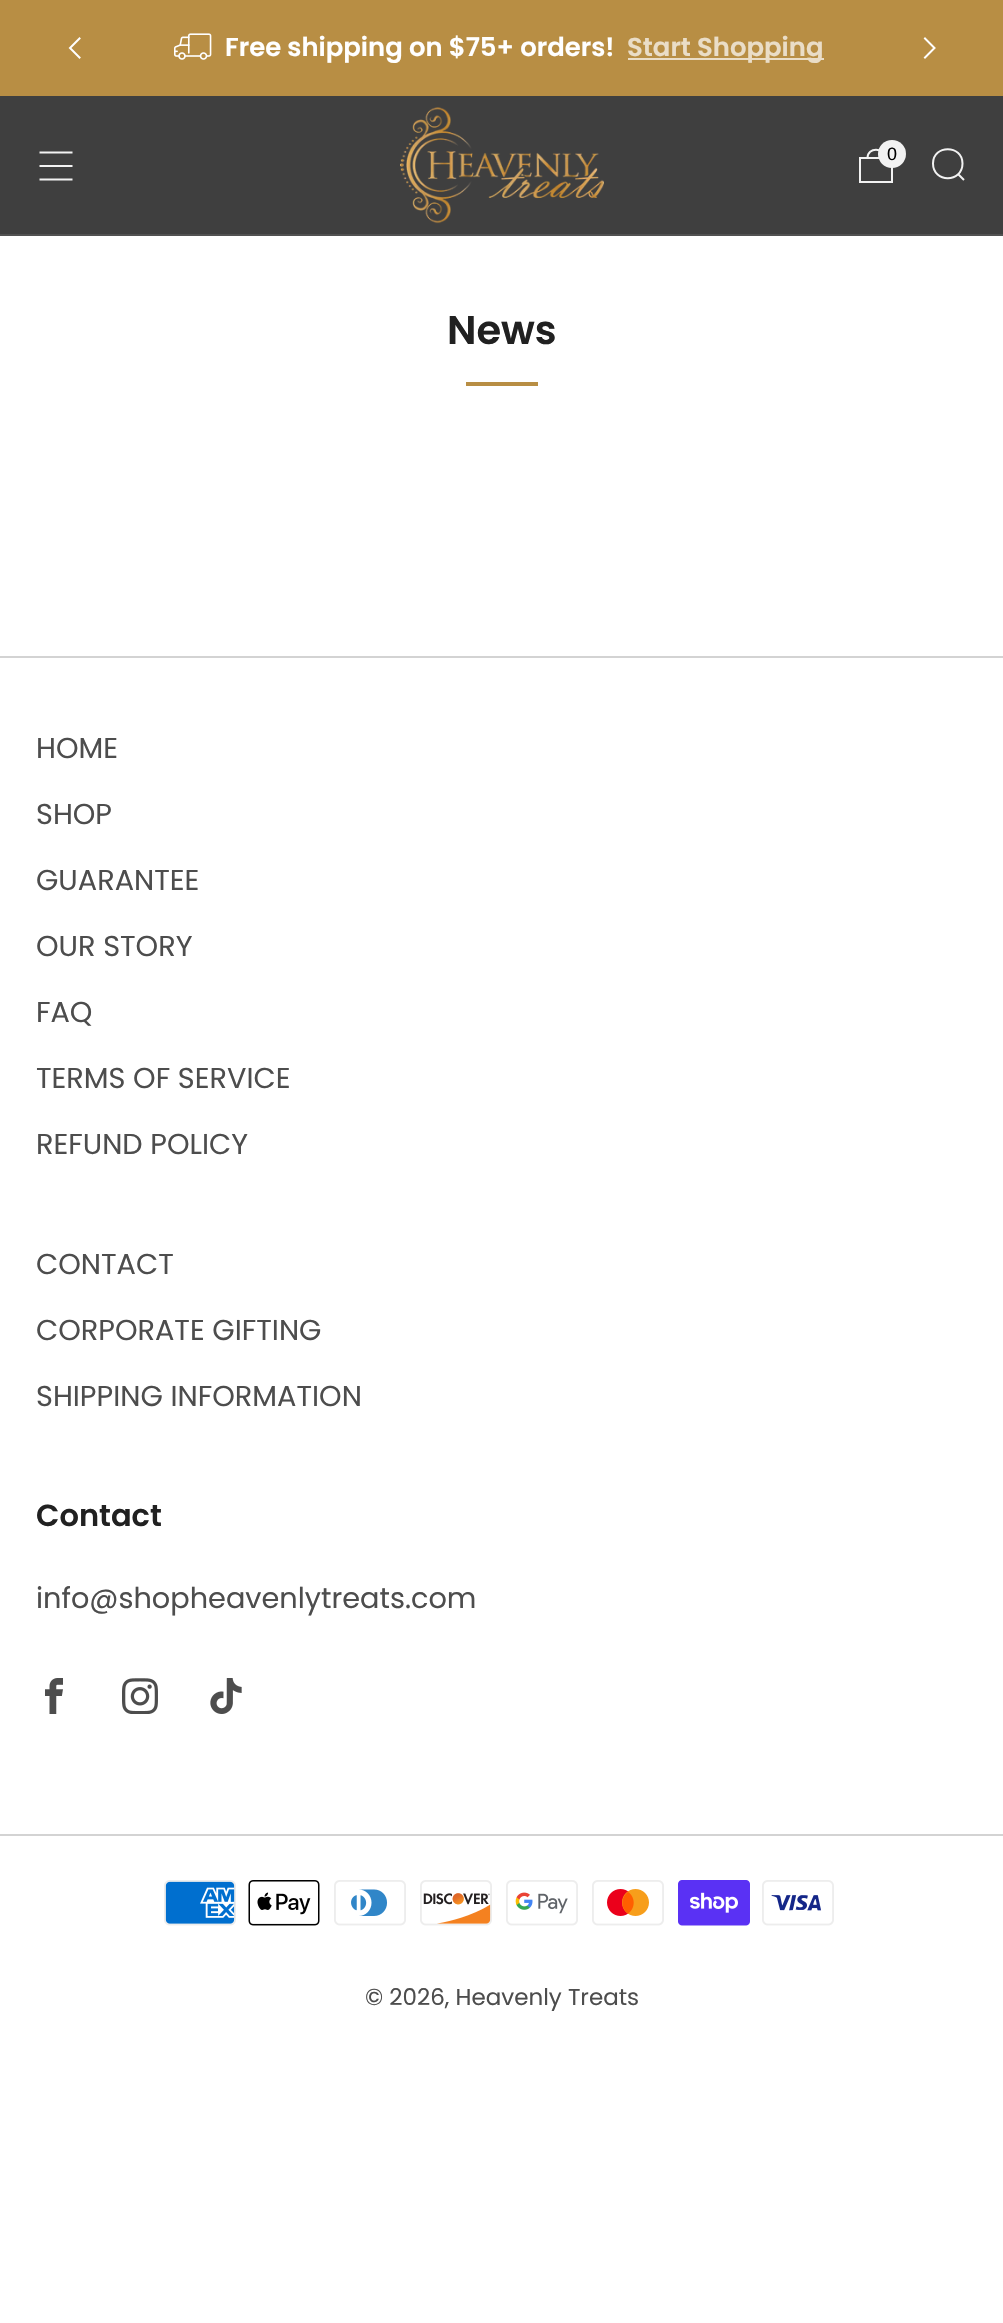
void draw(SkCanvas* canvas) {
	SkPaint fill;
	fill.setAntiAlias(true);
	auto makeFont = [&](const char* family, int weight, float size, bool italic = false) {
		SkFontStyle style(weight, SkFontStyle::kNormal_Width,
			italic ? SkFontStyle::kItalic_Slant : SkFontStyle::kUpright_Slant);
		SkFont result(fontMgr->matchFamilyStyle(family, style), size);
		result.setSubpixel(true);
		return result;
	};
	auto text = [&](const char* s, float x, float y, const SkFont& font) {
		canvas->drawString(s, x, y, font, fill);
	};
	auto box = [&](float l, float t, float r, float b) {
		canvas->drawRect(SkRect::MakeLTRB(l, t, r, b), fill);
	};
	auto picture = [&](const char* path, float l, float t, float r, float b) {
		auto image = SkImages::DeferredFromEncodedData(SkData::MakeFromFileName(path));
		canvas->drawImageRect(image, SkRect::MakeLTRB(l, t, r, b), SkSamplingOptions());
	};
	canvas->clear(0xFFFFFFFF);
	fill.setColor(0xFFB88E44);
	box(0, 0, 1003, 96);
	fill.setStyle(SkPaint::kStroke_Style);
	fill.setStrokeWidth(2);
	fill.setStrokeCap(SkPaint::kSquare_Cap);
	fill.setColor(0xFFFFFFFF);
	canvas->drawPath(SkPathBuilder().moveTo(79.5f, 57.5f).lineTo(70, 48).lineTo(79.5f, 38.5f).detach(), fill);
	picture("image0.png", 174, 33, 212, 60);
	fill.setStyle(SkPaint::kFill_Style);
	fill.setColor(0xFFEADDC7);
	box(628, 58, 824, 60);
	fill.setStyle(SkPaint::kStroke_Style);
	fill.setColor(0xFFFFFFFF);
	canvas->drawPath(SkPathBuilder().moveTo(925, 38.5f).lineTo(934.5f, 48).lineTo(925, 57.5f).detach(), fill);
	fill.setStyle(SkPaint::kFill_Style);
	fill.setColor(0xFF3F3F3F);
	box(0, 96, 1003, 234);
	fill.setColor(0xFF515151);
	box(0, 234, 1003, 236);
	fill.setStyle(SkPaint::kStroke_Style);
	fill.setStrokeCap(SkPaint::kButt_Cap);
	fill.setColor(0xFFF2F2F2);
	canvas->drawPath(SkPathBuilder().moveTo(39.5f, 152.5f).lineTo(72.5f, 152.5f).moveTo(39.5f, 166).lineTo(72.5f, 166).moveTo(39.5f, 179.5f).lineTo(72.5f, 179.5f).detach(), fill);
	picture("image1.png", 400, 107, 604, 224);
	canvas->drawPath(SkPathBuilder().moveTo(884.5f, 158).cubicTo(884.5f, 147, 867.5f, 147, 867.5f, 158).moveTo(860, 158).lineTo(892, 158).lineTo(892, 182).lineTo(860, 182).close().detach(), fill);
	fill.setStyle(SkPaint::kFill_Style);
	canvas->drawCircle(892, 154, 14, fill);
	fill.setStyle(SkPaint::kStroke_Style);
	canvas->drawPath(SkPathBuilder().moveTo(958, 174).lineTo(964, 180).moveTo(962.5f, 163.5f).cubicTo(962.5f, 183, 933, 183, 933, 163.5f).cubicTo(933, 144.5f, 962.5f, 144.5f, 962.5f, 163.5f).close().detach(), fill);
	fill.setStyle(SkPaint::kFill_Style);
	fill.setColor(0xFFB88E44);
	box(466, 382, 538, 386);
	fill.setColor(0xFFD3D3D3);
	box(0, 656, 1003, 658);
	picture("image2.png", 45, 1678, 63, 1714);
	picture("image3.png", 122, 1678, 158, 1714);
	picture("image4.png", 210, 1678, 242, 1714);
	box(0, 1834, 1003, 1836);
	picture("image5.png", 164, 1880, 236, 1926);
	picture("image6.png", 248, 1880, 320, 1926);
	picture("image7.png", 334, 1880, 406, 1926);
	picture("image8.png", 420, 1880, 492, 1926);
	picture("image9.png", 506, 1880, 578, 1926);
	picture("image10.png", 592, 1880, 664, 1926);
	picture("image11.png", 678, 1880, 750, 1926);
	picture("image12.png", 762, 1880, 834, 1926);
	auto font1 = makeFont("Poppins", 600, 25.9f);
	fill.setColor(0xFFFFFFFF);
	text("Free shipping on $75+ orders!", 225, 56, font1);
	fill.setColor(0xFFEADDC7);
	text("Start Shopping", 627, 56, font1);
	auto font2 = makeFont("Liberation Sans", 400, 18);
	fill.setColor(0xFF000000);
	text("0", 887, 160, font2);
	auto font3 = makeFont("Poppins", 600, 40);
	fill.setColor(0xFF212121);
	text("News", 447, 344, font3);
	auto font4 = makeFont("Poppins", 400, 28.75f);
	fill.setColor(0xFF4D4D4D);
	text("HOME", 36, 758, font4);
	text("SHOP", 36, 824, font4);
	text("GUARANTEE", 36, 890, font4);
	text("OUR STORY", 36, 956, font4);
	text("FAQ", 36, 1022, font4);
	text("TERMS OF SERVICE", 36, 1088, font4);
	text("REFUND POLICY", 36, 1154, font4);
	text("CONTACT", 36, 1274, font4);
	text("CORPORATE GIFTING", 36, 1340, font4);
	text("SHIPPING INFORMATION", 36, 1406, font4);
	auto font5 = makeFont("Poppins", 600, 30.5f);
	fill.setColor(0xFF212121);
	text("Contact", 36, 1526, font5);
	fill.setColor(0xFF4D4D4D);
	text("info@shopheavenlytreats.com", 36, 1608, font4);
	auto font6 = makeFont("Poppins", 400, 23);
	text("© 2026, Heavenly Treats", 365, 2005, font6);
}
